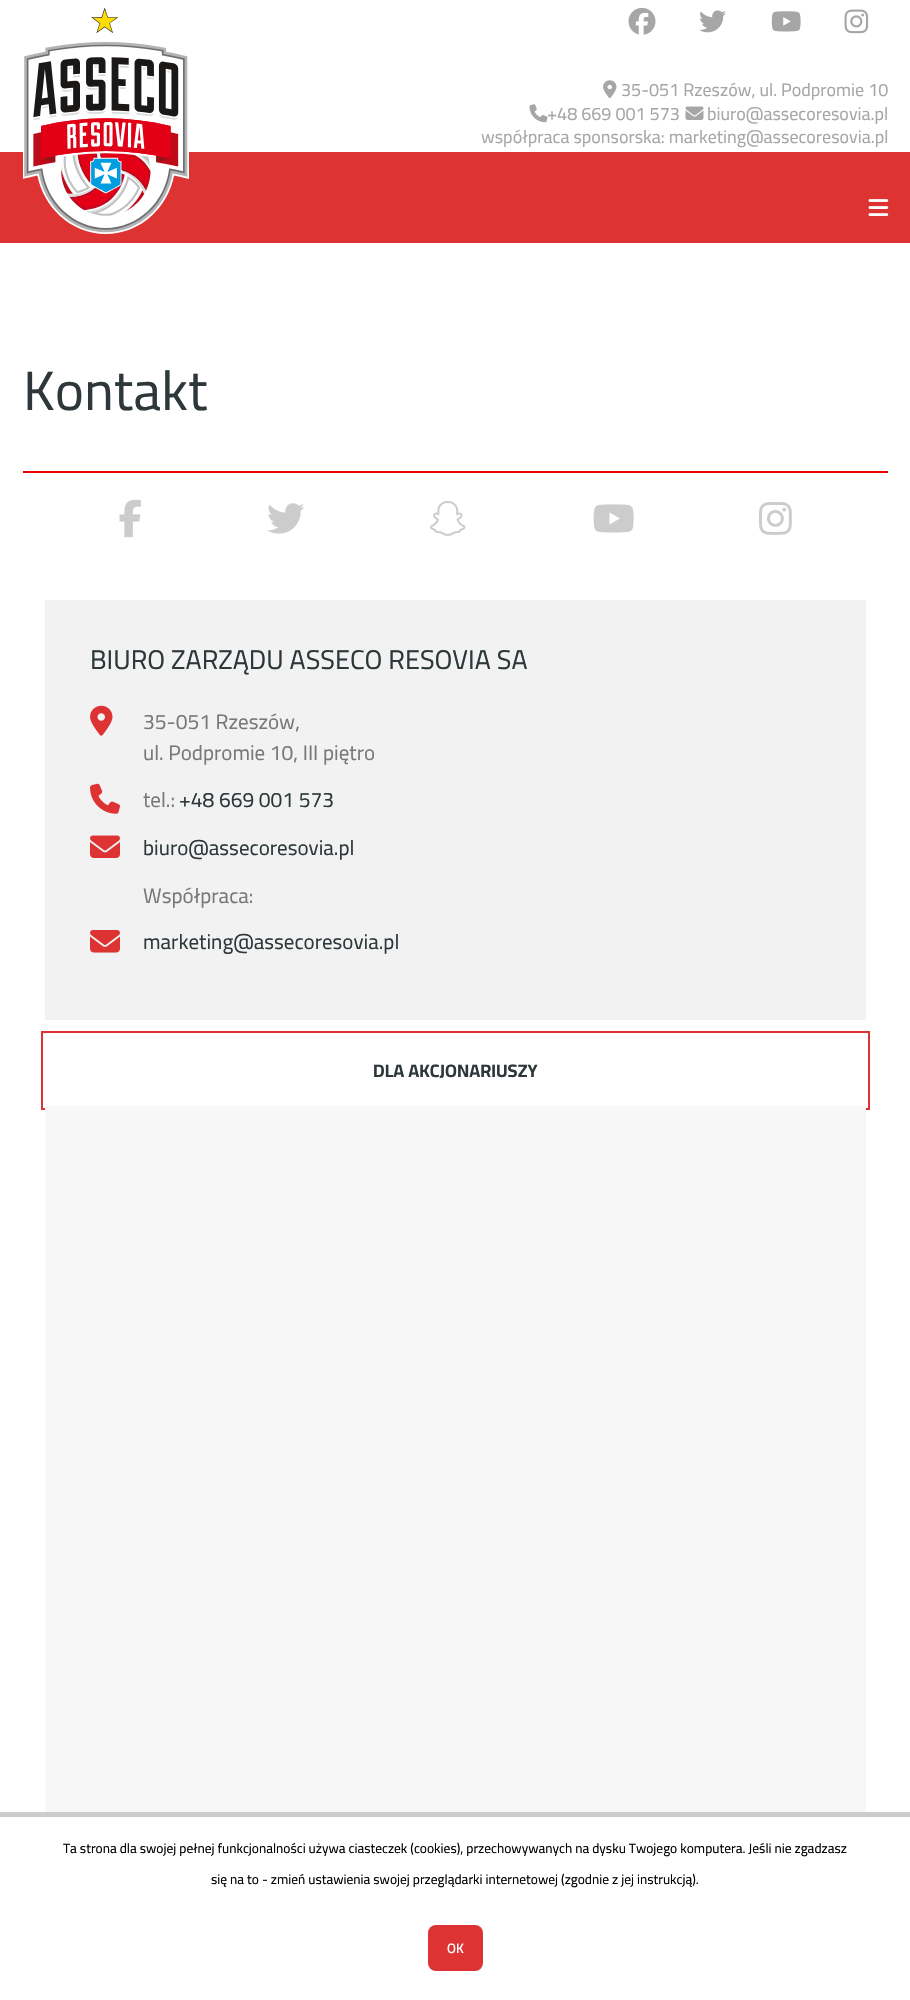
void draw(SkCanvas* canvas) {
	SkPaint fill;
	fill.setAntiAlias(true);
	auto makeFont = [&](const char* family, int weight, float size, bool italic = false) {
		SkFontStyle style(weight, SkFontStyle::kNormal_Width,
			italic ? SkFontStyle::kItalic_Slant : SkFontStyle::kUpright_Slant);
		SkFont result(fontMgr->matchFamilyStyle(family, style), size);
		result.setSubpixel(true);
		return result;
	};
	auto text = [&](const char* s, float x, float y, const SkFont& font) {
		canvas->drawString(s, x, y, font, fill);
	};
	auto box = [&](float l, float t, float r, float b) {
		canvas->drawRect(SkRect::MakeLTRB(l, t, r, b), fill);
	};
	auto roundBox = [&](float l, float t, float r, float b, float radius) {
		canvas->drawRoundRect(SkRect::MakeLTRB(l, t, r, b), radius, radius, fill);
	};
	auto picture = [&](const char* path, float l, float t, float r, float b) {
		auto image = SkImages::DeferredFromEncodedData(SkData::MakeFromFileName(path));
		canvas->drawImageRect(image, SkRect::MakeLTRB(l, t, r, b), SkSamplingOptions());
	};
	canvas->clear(0xFFFFFFFF);
	fill.setColor(0xFFDD3333);
	box(0, 152, 910, 243);
	picture("image0.png", 23, 8, 189, 234);
	picture("image1.png", 628, 7, 656, 35);
	picture("image2.png", 699, 10, 726, 33);
	picture("image3.png", 771, 11, 801, 32);
	picture("image4.png", 844, 9, 869, 34);
	picture("image5.png", 603, 80, 617, 99);
	picture("image7.png", 685, 106, 704, 120);
	picture("image8.png", 868, 199, 889, 216);
	fill.setColor(0xFFEA0000);
	box(23, 471, 888, 473);
	picture("image9.png", 119, 499, 141, 538);
	picture("image10.png", 267, 503, 304, 534);
	picture("image11.png", 430, 501, 466, 536);
	picture("image12.png", 593, 504, 634, 533);
	picture("image13.png", 759, 502, 792, 535);
	fill.setColor(0xFFF2F2F2);
	box(45, 600, 866, 1020);
	picture("image14.png", 90, 705, 113, 736);
	picture("image15.png", 90, 783, 120, 814);
	picture("image16.png", 90, 835, 120, 858);
	picture("image17.png", 90, 930, 120, 953);
	fill.setStyle(SkPaint::kStroke_Style);
	fill.setStrokeWidth(2);
	fill.setColor(0xFFDD3333);
	canvas->drawRect(SkRect::MakeLTRB(42, 1032, 869, 1109), fill);
	fill.setStyle(SkPaint::kFill_Style);
	fill.setColor(0xFFF7F7F7);
	box(45, 1106, 866, 1812);
	fill.setColor(0xFFCCCCCC);
	box(0, 1812, 910, 1817);
	fill.setColor(0xFFDD3333);
	roundBox(428, 1925, 483, 1971, 8);
	auto font1 = makeFont("Cairo", 400, 18);
	fill.setColor(0xFFA6A6A6);
	text("35-051 Rzeszów, ul. Podpromie 10", 621, 96, font1);
	text("+48 669 001 573", 547, 120, font1);
	picture("image6.png", 529, 104, 548, 123);
	text("biuro@assecoresovia.pl", 707, 120, font1);
	text("współpraca sponsorska: marketing@assecoresovia.pl", 481, 143, font1);
	auto font2 = makeFont("Cairo", 400, 55.5f);
	fill.setColor(0xFF2E383A);
	text("Kontakt", 23, 410, font2);
	auto font3 = makeFont("Cairo", 400, 27);
	text("BIURO ZARZĄDU ASSECO RESOVIA SA", 90, 669, font3);
	auto font4 = makeFont("Cairo", 400, 21);
	fill.setColor(0xFF787878);
	text("35-051 Rzeszów,", 143, 729, font4);
	text("ul. Podpromie 10, III piętro", 143, 760, font4);
	text("tel.:", 143, 807, font4);
	fill.setColor(0xFF2E383A);
	text("+48 669 001 573", 179, 807, font4);
	text("biuro@assecoresovia.pl", 143, 855, font4);
	fill.setColor(0xFF787878);
	text("Współpraca:", 143, 903, font4);
	fill.setColor(0xFF2E383A);
	text("marketing@assecoresovia.pl", 143, 949, font4);
	auto font5 = makeFont("Cairo", 700, 18);
	text("DLA AKCJONARIUSZY", 373, 1077, font5);
	auto font6 = makeFont("Cairo", 400, 13.5f);
	fill.setColor(0xFF000000);
	text("Ta strona dla swojej pełnej funkcjonalności używa ciasteczek (cookies), przechowywanych na dysku Twojego komputera. Jeśli nie zgadzasz", 63, 1853, font6);
	text("się na to - zmień ustawienia swojej przeglądarki internetowej (zgodnie z jej instrukcją).", 211, 1884, font6);
	auto font7 = makeFont("Cairo", 600, 13.5f);
	fill.setColor(0xFFFFFFFF);
	text("OK", 447, 1953, font7);
}
